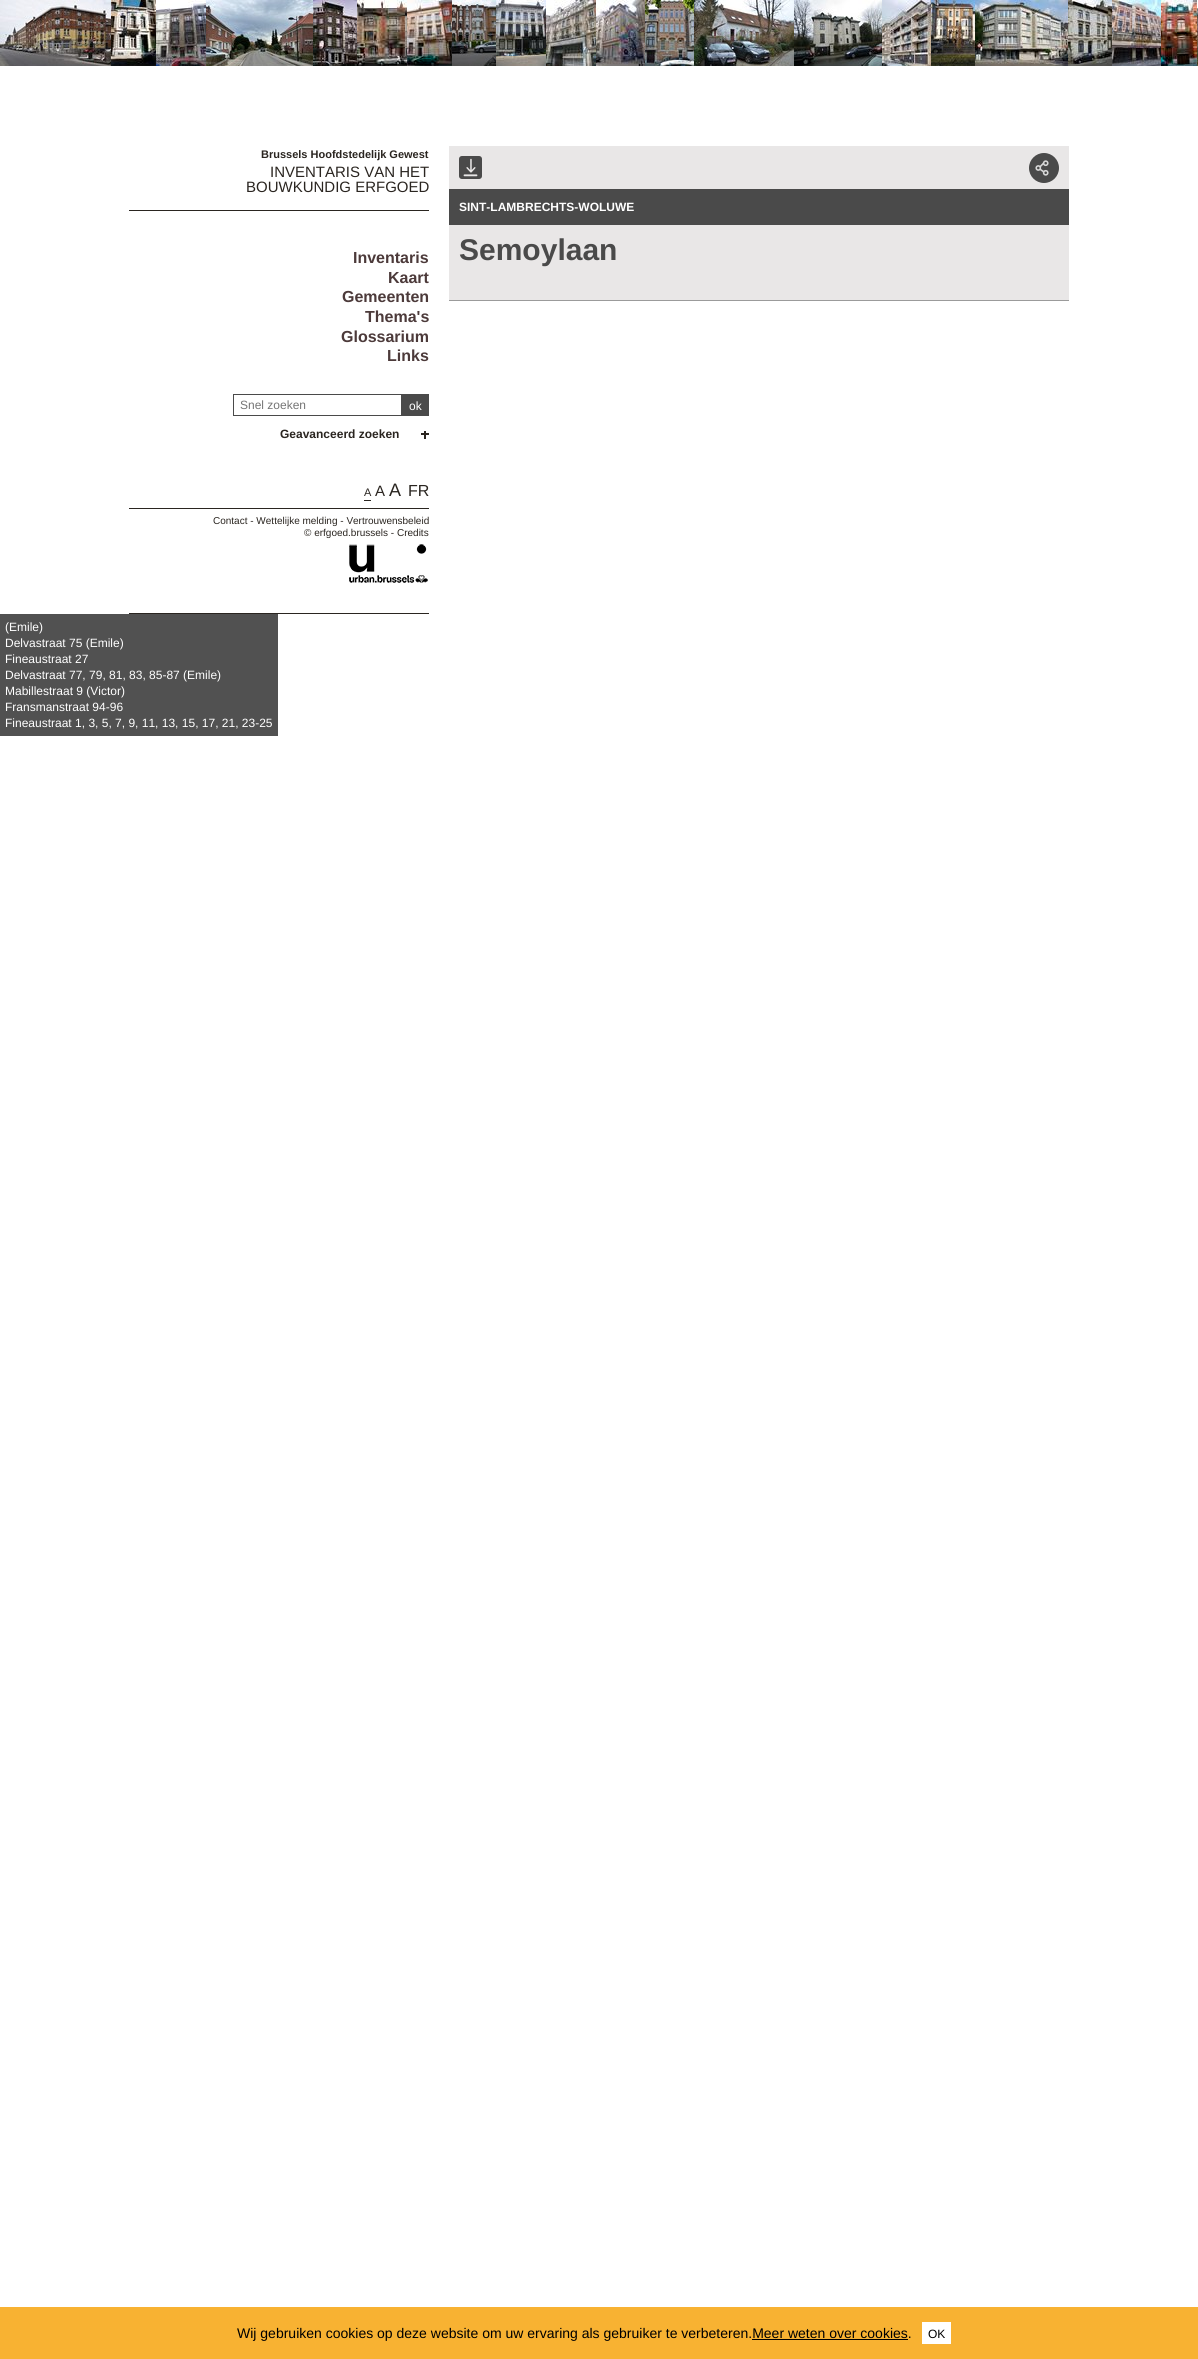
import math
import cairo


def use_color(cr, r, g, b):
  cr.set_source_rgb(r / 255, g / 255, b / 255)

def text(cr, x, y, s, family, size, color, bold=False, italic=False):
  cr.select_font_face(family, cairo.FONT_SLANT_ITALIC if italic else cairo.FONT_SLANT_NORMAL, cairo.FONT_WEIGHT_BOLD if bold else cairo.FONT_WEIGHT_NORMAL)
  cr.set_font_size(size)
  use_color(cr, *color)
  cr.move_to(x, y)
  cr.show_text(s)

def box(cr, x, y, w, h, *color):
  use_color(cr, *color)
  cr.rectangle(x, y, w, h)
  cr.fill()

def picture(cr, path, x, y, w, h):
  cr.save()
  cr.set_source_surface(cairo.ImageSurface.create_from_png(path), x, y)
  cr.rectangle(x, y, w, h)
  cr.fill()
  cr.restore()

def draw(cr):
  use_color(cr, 255, 255, 255)
  cr.paint()
  picture(cr, "img_01.png", 0, 0, 111, 66)
  picture(cr, "img_02.png", 111, 0, 45, 66)
  picture(cr, "img_03.png", 156, 0, 50, 66)
  picture(cr, "img_04.png", 206, 0, 107, 66)
  picture(cr, "img_05.png", 313, 0, 44, 66)
  picture(cr, "img_06.png", 357, 0, 50, 66)
  picture(cr, "img_07.png", 407, 0, 45, 66)
  picture(cr, "img_08.png", 452, 0, 44, 66)
  picture(cr, "img_09.png", 496, 0, 50, 66)
  picture(cr, "img_10.png", 546, 0, 50, 66)
  picture(cr, "img_11.png", 596, 0, 49, 66)
  picture(cr, "img_12.png", 645, 0, 49, 66)
  picture(cr, "img_13.png", 694, 0, 100, 66)
  picture(cr, "img_14.png", 794, 0, 88, 66)
  picture(cr, "img_15.png", 882, 0, 49, 66)
  picture(cr, "img_16.png", 931, 0, 44, 66)
  picture(cr, "img_17.png", 975, 0, 93, 66)
  picture(cr, "img_18.png", 1068, 0, 44, 66)
  picture(cr, "img_19.png", 1112, 0, 49, 66)
  picture(cr, "img_20.png", 1161, 0, 36, 66)
  picture(cr, "img_21.png", 1197, 6, 1, 60)
  box(cr, 129, 210, 300, 1, 42, 37, 32)
  box(cr, 129, 613, 300, 1, 42, 37, 32)
  cr.rectangle(233.5, 394.5, 168, 21)
  use_color(cr, 74, 74, 74)
  cr.set_line_width(1)
  cr.stroke()
  box(cr, 402, 394, 27, 22, 74, 74, 74)
  box(cr, 424, 431, 2, 8, 42, 37, 32)
  box(cr, 421, 433, 8, 2, 42, 37, 32)
  box(cr, 364, 500, 7, 1, 42, 37, 32)
  box(cr, 129, 508, 300, 1, 42, 37, 32)
  picture(cr, "img_22.png", 349, 544, 79, 39)
  box(cr, 449, 146, 620, 154, 233, 231, 231)
  box(cr, 449, 300, 620, 1, 155, 155, 155)
  picture(cr, "img_23.png", 459, 156, 23, 23)
  use_color(cr, 74, 74, 74)
  cr.arc(1044, 168, 15, 0, 2 * math.pi)
  cr.fill()
  picture(cr, "img_24.png", 1035, 160, 14, 16)
  box(cr, 449, 189, 620, 36, 74, 74, 74)
  box(cr, 0, 614, 278, 122, 81, 81, 81)
  box(cr, 0, 2307, 1198, 52, 248, 178, 50)
  box(cr, 922, 2322, 29, 22, 255, 255, 255)
  box(cr, 752, 2339, 156, 1, 0, 0, 0)
  text(cr, 261, 158, "Brussels Hoofdstedelijk Gewest", "Liberation Sans", 11, (42, 37, 32), bold=True)
  text(cr, 270, 177, "INVENTARIS VAN HET", "Liberation Sans", 15, (42, 37, 32))
  text(cr, 246, 192, "BOUWKUNDIG ERFGOED", "Liberation Sans", 15, (42, 37, 32))
  text(cr, 353, 263, "Inventaris", "Liberation Sans", 16, (76, 58, 58), bold=True)
  text(cr, 388, 283, "Kaart", "Liberation Sans", 16, (76, 58, 58), bold=True)
  text(cr, 342, 302, "Gemeenten", "Liberation Sans", 16, (76, 58, 58), bold=True)
  text(cr, 365, 322, "Thema's", "Liberation Sans", 16, (76, 58, 58), bold=True)
  text(cr, 341, 342, "Glossarium", "Liberation Sans", 16, (76, 58, 58), bold=True)
  text(cr, 387, 361, "Links", "Liberation Sans", 16, (76, 58, 58), bold=True)
  text(cr, 240, 409, "Snel zoeken", "Liberation Sans", 12, (117, 117, 117))
  text(cr, 409, 410, "ok", "Liberation Sans", 12, (255, 255, 255))
  text(cr, 280, 438, "Geavanceerd zoeken", "Liberation Sans", 12, (42, 37, 32), bold=True)
  text(cr, 364, 496, "A", "Liberation Sans", 11, (42, 37, 32))
  text(cr, 375, 496, "A", "Liberation Sans", 15, (42, 37, 32))
  text(cr, 389, 496, "A", "Liberation Sans", 18, (42, 37, 32))
  text(cr, 408, 496, "FR", "Liberation Sans", 16, (42, 37, 32))
  text(cr, 213, 524, "Contact - Wettelijke melding - Vertrouwensbeleid", "Liberation Sans", 10, (42, 37, 32))
  text(cr, 304, 536, "© erfgoed.brussels - Credits", "Liberation Sans", 10, (42, 37, 32))
  text(cr, 459, 211, "SINT-LAMBRECHTS-WOLUWE", "Liberation Sans", 12, (255, 255, 255), bold=True)
  text(cr, 459, 260, "Semoylaan", "Liberation Sans", 30, (74, 74, 74), bold=True)
  text(cr, 5, 631, "(Emile)", "Liberation Sans", 12, (255, 255, 255))
  text(cr, 5, 647, "Delvastraat 75 (Emile)", "Liberation Sans", 12, (255, 255, 255))
  text(cr, 5, 663, "Fineaustraat 27", "Liberation Sans", 12, (255, 255, 255))
  text(cr, 5, 679, "Delvastraat 77, 79, 81, 83, 85-87 (Emile)", "Liberation Sans", 12, (255, 255, 255))
  text(cr, 5, 695, "Mabillestraat 9 (Victor)", "Liberation Sans", 12, (255, 255, 255))
  text(cr, 5, 711, "Fransmanstraat 94-96", "Liberation Sans", 12, (255, 255, 255))
  text(cr, 5, 727, "Fineaustraat 1, 3, 5, 7, 9, 11, 13, 15, 17, 21, 23-25", "Liberation Sans", 12, (255, 255, 255))
  text(cr, 237, 2338, "Wij gebruiken cookies op deze website om uw ervaring als gebruiker te verbeteren.Meer weten over cookies.", "Liberation Sans", 14, (0, 0, 0))
  text(cr, 928, 2338, "OK", "Liberation Sans", 12, (0, 0, 0))


surface = cairo.ImageSurface(cairo.FORMAT_RGB24, 1198, 2359)
cr = cairo.Context(surface)
options = cairo.FontOptions()
options.set_hint_metrics(cairo.HINT_METRICS_OFF)
options.set_hint_style(cairo.HINT_STYLE_NONE)
cr.set_font_options(options)
cr.set_miter_limit(4)
draw(cr)
surface.write_to_png("out.png")
